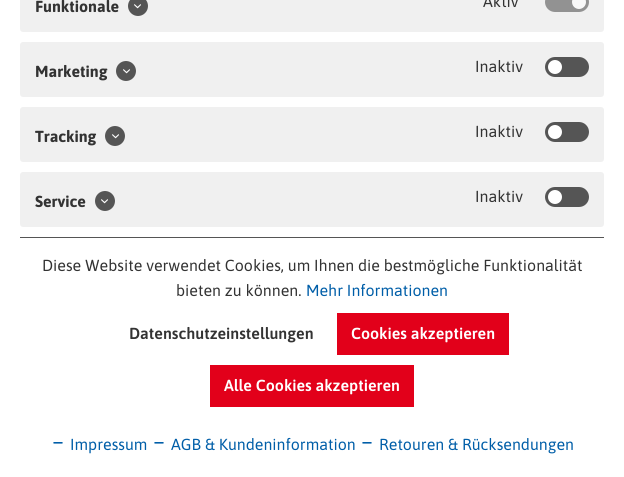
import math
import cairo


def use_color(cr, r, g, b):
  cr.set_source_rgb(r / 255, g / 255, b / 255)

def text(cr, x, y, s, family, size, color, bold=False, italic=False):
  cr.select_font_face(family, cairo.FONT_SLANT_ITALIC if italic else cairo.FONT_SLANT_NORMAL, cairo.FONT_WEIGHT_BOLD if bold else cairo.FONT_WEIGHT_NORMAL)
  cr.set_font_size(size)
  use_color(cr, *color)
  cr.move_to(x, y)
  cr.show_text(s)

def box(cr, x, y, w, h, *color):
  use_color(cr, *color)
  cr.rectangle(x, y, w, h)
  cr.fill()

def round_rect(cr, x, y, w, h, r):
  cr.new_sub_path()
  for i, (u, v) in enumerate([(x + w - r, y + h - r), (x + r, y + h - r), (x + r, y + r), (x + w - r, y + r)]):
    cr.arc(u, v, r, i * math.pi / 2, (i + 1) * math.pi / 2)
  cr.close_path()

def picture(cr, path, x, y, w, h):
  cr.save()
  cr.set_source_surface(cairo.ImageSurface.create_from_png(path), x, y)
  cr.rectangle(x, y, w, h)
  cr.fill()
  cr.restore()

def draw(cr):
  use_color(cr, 255, 255, 255)
  cr.paint()
  box(cr, 20, 237, 584, 1, 85, 85, 85)
  use_color(cr, 240, 240, 240)
  round_rect(cr, 20, -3, 584, 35, 3)
  cr.fill()
  use_color(cr, 85, 85, 85)
  cr.arc(138, 6, 10, 0, 2 * math.pi)
  cr.fill()
  picture(cr, "img_01.png", 134, 4, 7, 5)
  use_color(cr, 146, 146, 146)
  round_rect(cr, 545, -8, 44, 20, 10)
  cr.fill()
  use_color(cr, 248, 248, 248)
  cr.arc(579, 2, 7, 0, 2 * math.pi)
  cr.fill()
  use_color(cr, 240, 240, 240)
  round_rect(cr, 20, 42, 584, 55, 3)
  cr.fill()
  use_color(cr, 85, 85, 85)
  cr.arc(126, 71, 10, 0, 2 * math.pi)
  cr.fill()
  picture(cr, "img_01.png", 123, 69, 7, 5)
  round_rect(cr, 545, 57, 44, 20, 10)
  cr.fill()
  use_color(cr, 255, 255, 255)
  cr.arc(555, 67, 7, 0, 2 * math.pi)
  cr.fill()
  use_color(cr, 240, 240, 240)
  round_rect(cr, 20, 107, 584, 55, 3)
  cr.fill()
  use_color(cr, 85, 85, 85)
  cr.arc(115, 136, 10, 0, 2 * math.pi)
  cr.fill()
  picture(cr, "img_01.png", 112, 134, 7, 5)
  round_rect(cr, 545, 122, 44, 20, 10)
  cr.fill()
  use_color(cr, 255, 255, 255)
  cr.arc(555, 132, 7, 0, 2 * math.pi)
  cr.fill()
  use_color(cr, 240, 240, 240)
  round_rect(cr, 20, 172, 584, 55, 3)
  cr.fill()
  use_color(cr, 85, 85, 85)
  cr.arc(105, 201, 10, 0, 2 * math.pi)
  cr.fill()
  picture(cr, "img_01.png", 101, 199, 7, 5)
  round_rect(cr, 545, 187, 44, 20, 10)
  cr.fill()
  use_color(cr, 255, 255, 255)
  cr.arc(555, 197, 7, 0, 2 * math.pi)
  cr.fill()
  box(cr, 337, 313, 172, 42, 226, 0, 26)
  box(cr, 210, 365, 204, 42, 226, 0, 26)
  picture(cr, "img_02.png", 53, 442, 10, 2)
  picture(cr, "img_02.png", 154, 442, 10, 2)
  picture(cr, "img_02.png", 362, 442, 10, 2)
  text(cr, 35, 12, "Funktionale", "Asap", 16, (51, 51, 51), bold=True)
  text(cr, 483, 7, "Aktiv", "Asap", 16, (51, 51, 51))
  text(cr, 35, 77, "Marketing", "Asap", 16, (51, 51, 51), bold=True)
  text(cr, 475, 72, "Inaktiv", "Asap", 16, (51, 51, 51))
  text(cr, 35, 142, "Tracking", "Asap", 16, (51, 51, 51), bold=True)
  text(cr, 475, 137, "Inaktiv", "Asap", 16, (51, 51, 51))
  text(cr, 35, 207, "Service", "Asap", 16, (51, 51, 51), bold=True)
  text(cr, 475, 202, "Inaktiv", "Asap", 16, (51, 51, 51))
  text(cr, 42, 271, "Diese Website verwendet Cookies, um Ihnen die bestmögliche Funktionalität", "Asap", 16, (51, 51, 51))
  text(cr, 176, 296, "bieten zu können.", "Asap", 16, (51, 51, 51))
  text(cr, 306, 296, "Mehr Informationen", "Asap", 16, (0, 94, 168))
  text(cr, 129, 339, "Datenschutzeinstellungen", "Asap SemiBold", 16, (51, 51, 51))
  text(cr, 351, 339, "Cookies akzeptieren", "Asap SemiBold", 16, (255, 255, 255))
  text(cr, 224, 391, "Alle Cookies akzeptieren", "Asap SemiBold", 16, (255, 255, 255))
  text(cr, 70, 450, "Impressum", "Asap", 16, (0, 94, 168))
  text(cr, 171, 450, "AGB & Kundeninformation", "Asap", 16, (0, 94, 168))
  text(cr, 379, 450, "Retouren & Rücksendungen", "Asap", 16, (0, 94, 168))


surface = cairo.ImageSurface(cairo.FORMAT_RGB24, 624, 477)
cr = cairo.Context(surface)
options = cairo.FontOptions()
options.set_hint_metrics(cairo.HINT_METRICS_OFF)
options.set_hint_style(cairo.HINT_STYLE_NONE)
cr.set_font_options(options)
cr.set_miter_limit(4)
draw(cr)
surface.write_to_png("out.png")
